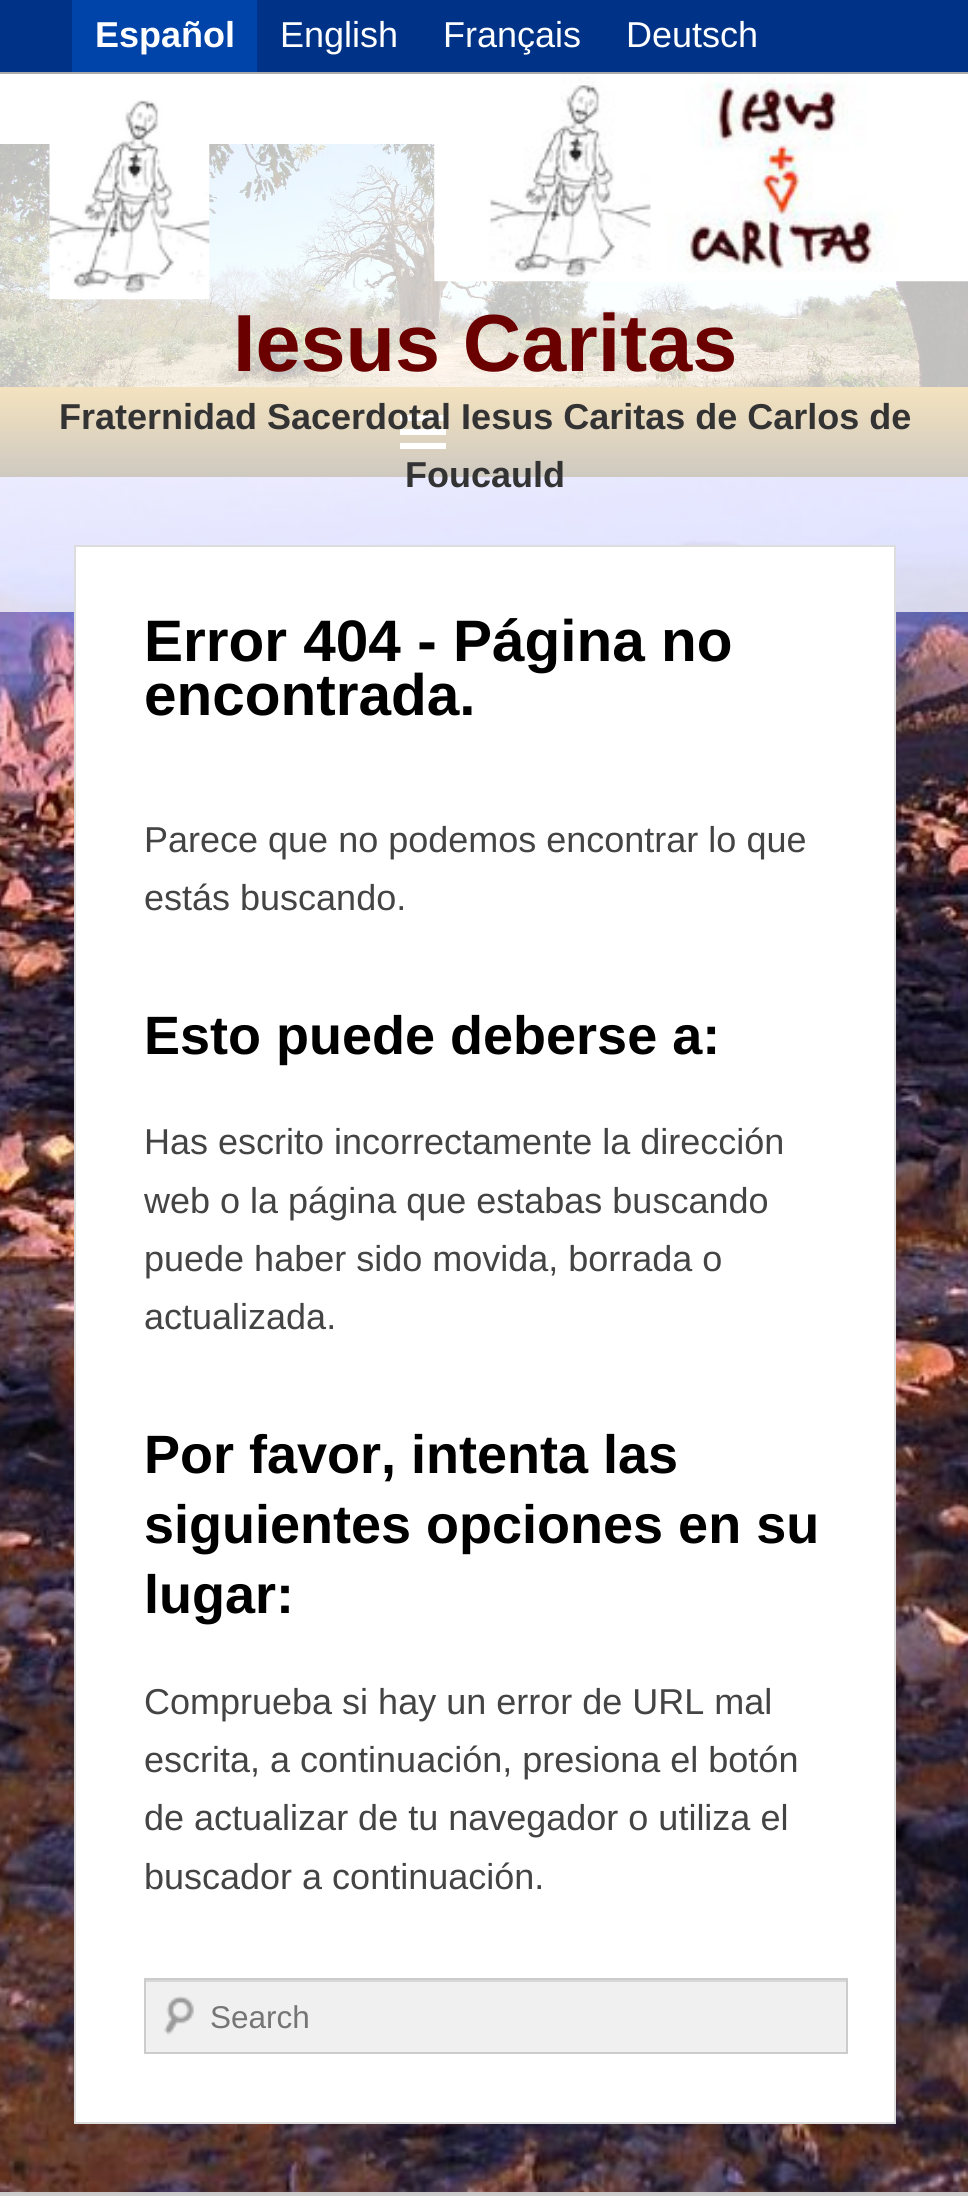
import math
import cairo


def use_color(cr, r, g, b):
  cr.set_source_rgb(r / 255, g / 255, b / 255)

def text(cr, x, y, s, family, size, color, bold=False, italic=False):
  cr.select_font_face(family, cairo.FONT_SLANT_ITALIC if italic else cairo.FONT_SLANT_NORMAL, cairo.FONT_WEIGHT_BOLD if bold else cairo.FONT_WEIGHT_NORMAL)
  cr.set_font_size(size)
  use_color(cr, *color)
  cr.move_to(x, y)
  cr.show_text(s)

def box(cr, x, y, w, h, *color):
  use_color(cr, *color)
  cr.rectangle(x, y, w, h)
  cr.fill()

def picture(cr, path, x, y, w, h):
  cr.save()
  cr.set_source_surface(cairo.ImageSurface.create_from_png(path), x, y)
  cr.rectangle(x, y, w, h)
  cr.fill()
  cr.restore()

def draw(cr):
  use_color(cr, 255, 255, 255)
  cr.paint()
  picture(cr, "img_01.png", 0, 477, 968, 1715)
  box(cr, 0, 0, 968, 72, 0, 51, 136)
  box(cr, 0, 72, 968, 2, 170, 170, 170)
  box(cr, 72, 0, 185, 72, 0, 68, 170)
  picture(cr, "img_02.png", 0, 144, 968, 243)
  gradient = cairo.LinearGradient(485, 387, 485, 477)
  gradient.add_color_stop_rgba(0, 0.831, 0.557, 0, 1)
  gradient.add_color_stop_rgba(1, 0.235, 0.153, 0.012, 1)
  cr.set_source(gradient)
  cr.rectangle(0, 387, 968, 90)
  cr.fill()
  use_color(cr, 255, 255, 255)
  cr.new_path()
  cr.move_to(400, 449)
  cr.line_to(400, 443)
  cr.line_to(446, 443)
  cr.line_to(446, 449)
  cr.close_path()
  cr.move_to(400, 415)
  cr.line_to(446, 415)
  cr.line_to(446, 421)
  cr.line_to(400, 421)
  cr.close_path()
  cr.move_to(400, 435)
  cr.line_to(400, 429)
  cr.line_to(446, 429)
  cr.line_to(446, 435)
  cr.close_path()
  cr.fill()
  cr.set_source_rgba(1, 1, 1, 0.75)
  cr.rectangle(0, 144, 968, 468)
  cr.fill()
  picture(cr, "img_03.png", 434, 74, 534, 208)
  picture(cr, "img_04.png", 49, 100, 161, 200)
  use_color(cr, 255, 255, 255)
  cr.rectangle(75, 546, 820, 1577)
  cr.fill_preserve()
  use_color(cr, 221, 221, 221)
  cr.stroke()
  box(cr, 146, 1982, 700, 70, 240, 240, 240)
  picture(cr, "img_05.png", 164, 1996, 30, 39)
  box(cr, 146, 1980, 700, 2, 216, 216, 216)
  cr.rectangle(145, 1979, 702, 74)
  use_color(cr, 204, 204, 204)
  cr.stroke()
  box(cr, 0, 2192, 968, 4, 204, 204, 204)
  text(cr, 95, 47, "Español", "Liberation Sans", 36, (255, 255, 255), bold=True)
  text(cr, 280, 47, "English", "Liberation Sans", 36, (255, 255, 255))
  text(cr, 443, 47, "Français", "Liberation Sans", 36, (255, 255, 255))
  text(cr, 626, 47, "Deutsch", "Liberation Sans", 36, (255, 255, 255))
  text(cr, 233, 371, "Iesus Caritas", "Liberation Sans", 81, (107, 0, 0), bold=True)
  text(cr, 59, 429, "Fraternidad Sacerdotal Iesus Caritas de Carlos de", "Liberation Sans", 36, (51, 51, 51), bold=True)
  text(cr, 405, 487, "Foucauld", "Liberation Sans", 36, (51, 51, 51), bold=True)
  text(cr, 144, 661, "Error 404 - Página no", "Liberation Sans", 58.5, (0, 0, 0), bold=True)
  text(cr, 144, 715, "encontrada.", "Liberation Sans", 58.5, (0, 0, 0), bold=True)
  text(cr, 144, 852, "Parece que no podemos encontrar lo que", "Liberation Sans", 36, (68, 68, 68))
  text(cr, 144, 910, "estás buscando.", "Liberation Sans", 36, (68, 68, 68))
  text(cr, 144, 1054, "Esto puede deberse a:", "Liberation Sans", 54, (0, 0, 0), bold=True)
  text(cr, 144, 1154, "Has escrito incorrectamente la dirección", "Liberation Sans", 36, (68, 68, 68))
  text(cr, 144, 1213, "web o la página que estabas buscando", "Liberation Sans", 36, (68, 68, 68))
  text(cr, 144, 1271, "puede haber sido movida, borrada o", "Liberation Sans", 36, (68, 68, 68))
  text(cr, 144, 1329, "actualizada.", "Liberation Sans", 36, (68, 68, 68))
  text(cr, 144, 1473, "Por favor, intenta las", "Liberation Sans", 54, (0, 0, 0), bold=True)
  text(cr, 144, 1543, "siguientes opciones en su", "Liberation Sans", 54, (0, 0, 0), bold=True)
  text(cr, 144, 1613, "lugar:", "Liberation Sans", 54, (0, 0, 0), bold=True)
  text(cr, 144, 1714, "Comprueba si hay un error de URL mal", "Liberation Sans", 36, (68, 68, 68))
  text(cr, 144, 1772, "escrita, a continuación, presiona el botón", "Liberation Sans", 36, (68, 68, 68))
  text(cr, 144, 1830, "de actualizar de tu navegador o utiliza el", "Liberation Sans", 36, (68, 68, 68))
  text(cr, 144, 1889, "buscador a continuación.", "Liberation Sans", 36, (68, 68, 68))
  text(cr, 210, 2028, "Search", "Liberation Sans", 31.5, (117, 117, 117))


surface = cairo.ImageSurface(cairo.FORMAT_RGB24, 968, 2196)
cr = cairo.Context(surface)
options = cairo.FontOptions()
options.set_hint_metrics(cairo.HINT_METRICS_OFF)
options.set_hint_style(cairo.HINT_STYLE_NONE)
cr.set_font_options(options)
cr.set_miter_limit(4)
draw(cr)
surface.write_to_png("out.png")
